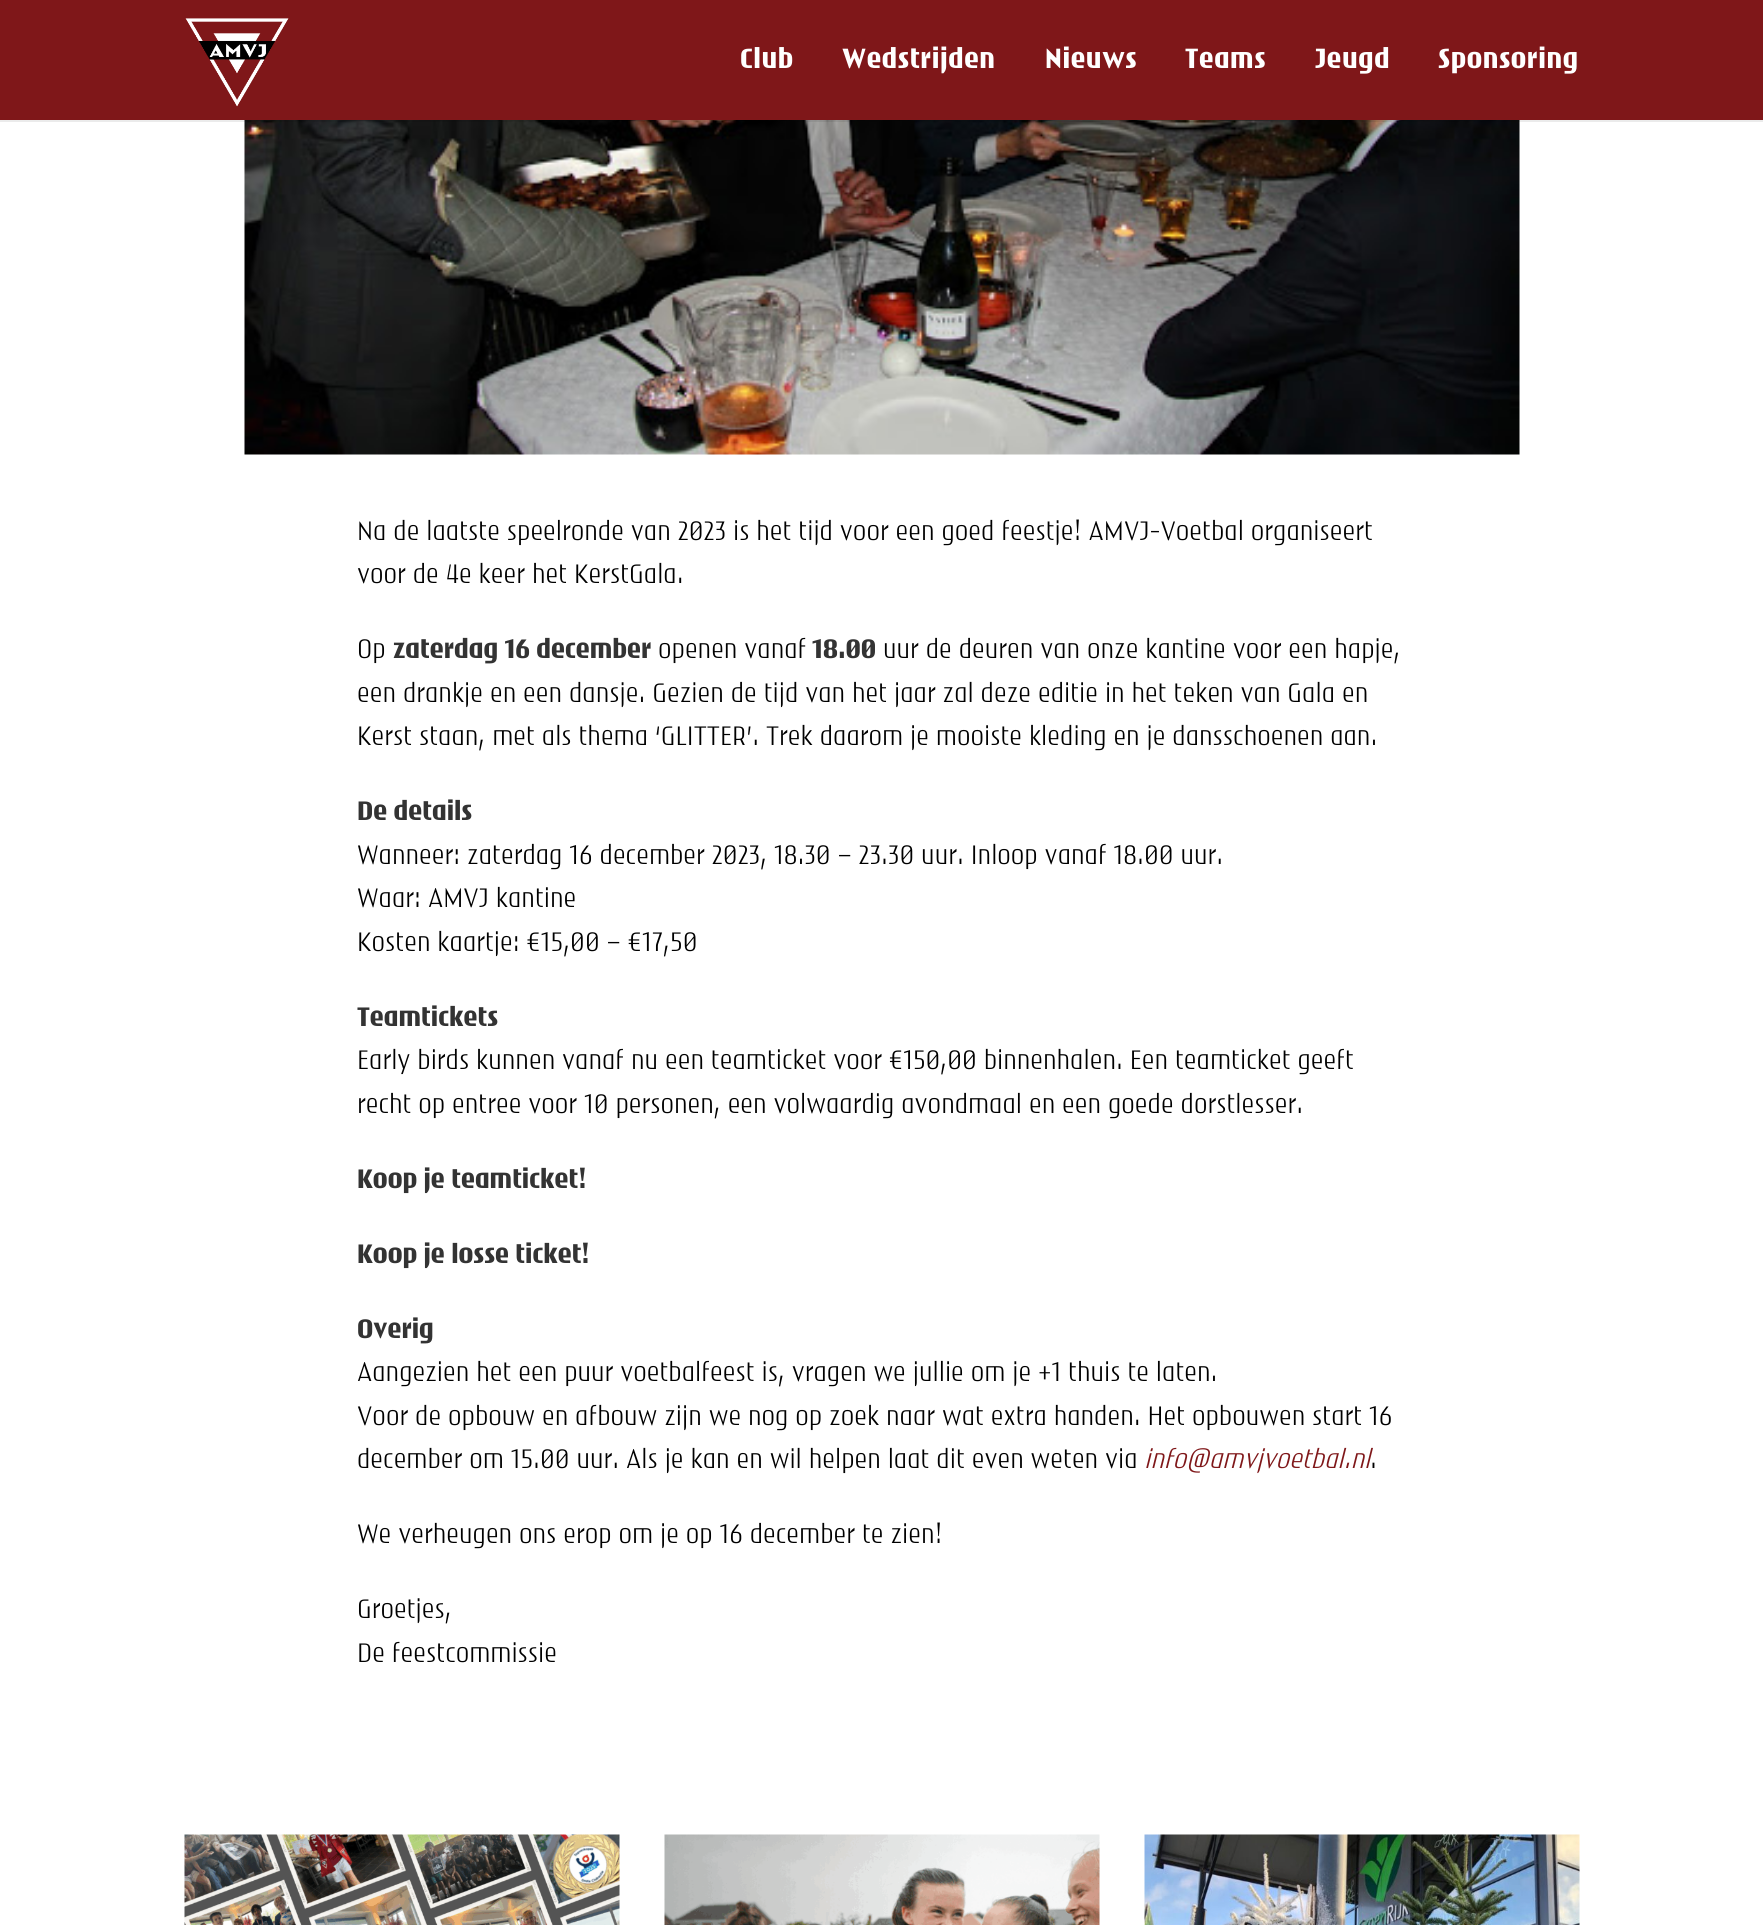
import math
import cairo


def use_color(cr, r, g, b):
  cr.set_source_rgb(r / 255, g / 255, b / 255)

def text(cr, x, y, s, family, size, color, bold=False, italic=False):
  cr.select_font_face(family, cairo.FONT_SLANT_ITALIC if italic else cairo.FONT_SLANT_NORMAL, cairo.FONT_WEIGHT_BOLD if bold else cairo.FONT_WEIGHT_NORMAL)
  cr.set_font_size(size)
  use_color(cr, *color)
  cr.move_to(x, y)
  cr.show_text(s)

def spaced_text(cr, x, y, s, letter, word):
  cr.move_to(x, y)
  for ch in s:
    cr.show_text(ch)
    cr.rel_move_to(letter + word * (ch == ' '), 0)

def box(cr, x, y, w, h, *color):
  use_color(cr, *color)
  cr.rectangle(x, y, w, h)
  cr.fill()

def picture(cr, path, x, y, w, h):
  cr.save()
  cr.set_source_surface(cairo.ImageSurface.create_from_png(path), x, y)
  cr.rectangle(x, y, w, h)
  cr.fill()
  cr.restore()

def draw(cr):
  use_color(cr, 255, 255, 255)
  cr.paint()
  picture(cr, "img_02.png", 244, 120, 1276, 335)
  cr.set_source_rgba(0, 0, 0, 0.08)
  cr.rectangle(0, 120, 1763, 2)
  cr.fill()
  box(cr, 0, 0, 1763, 120, 127, 23, 25)
  picture(cr, "img_01.png", 185, 18, 104, 89)
  picture(cr, "img_03.png", 184, 1834, 436, 91)
  picture(cr, "img_04.png", 664, 1834, 436, 91)
  picture(cr, "img_05.png", 1144, 1834, 436, 91)
  cr.select_font_face("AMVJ", cairo.FONT_SLANT_NORMAL, cairo.FONT_WEIGHT_BOLD)
  cr.set_font_size(27.5)
  use_color(cr, 255, 255, 255)
  spaced_text(cr, 740, 68, "Club", 0.6, 0)
  spaced_text(cr, 842, 68, "Wedstrijden", 0.6, 0)
  spaced_text(cr, 1045, 68, "Nieuws", 0.6, 0)
  spaced_text(cr, 1185, 68, "Teams", 0.6, 0)
  spaced_text(cr, 1315, 68, "Jeugd", 0.6, 0)
  spaced_text(cr, 1438, 68, "Sponsoring", 0.6, 0)
  text(cr, 357, 540, "Na de laatste speelronde van 2023 is het tijd voor een goed feestje! AMVJ-Voetbal organiseert", "AMVJ", 26.4, (0, 0, 0))
  text(cr, 357, 583, "voor de 4e keer het KerstGala.", "AMVJ", 26.4, (0, 0, 0))
  text(cr, 357, 658, "Op", "AMVJ", 26.4, (0, 0, 0))
  text(cr, 393, 658, "zaterdag 16 december", "AMVJ", 26.4, (51, 51, 51), bold=True)
  text(cr, 658, 658, "openen vanaf", "AMVJ", 26.4, (0, 0, 0))
  text(cr, 812, 658, "18.00", "AMVJ", 26.4, (51, 51, 51), bold=True)
  text(cr, 883, 658, "uur de deuren van onze kantine voor een hapje,", "AMVJ", 26.4, (0, 0, 0))
  text(cr, 357, 702, "een drankje en een dansje. Gezien de tijd van het jaar zal deze editie in het teken van Gala en", "AMVJ", 26.4, (0, 0, 0))
  text(cr, 357, 745, "Kerst staan, met als thema ‘GLITTER’. Trek daarom je mooiste kleding en je dansschoenen aan.", "AMVJ", 26.4, (0, 0, 0))
  text(cr, 357, 820, "De details", "AMVJ", 26.4, (51, 51, 51), bold=True)
  text(cr, 357, 864, "Wanneer: zaterdag 16 december 2023, 18.30 – 23.30 uur. Inloop vanaf 18.00 uur.", "AMVJ", 26.4, (0, 0, 0))
  text(cr, 357, 907, "Waar: AMVJ kantine", "AMVJ", 26.4, (0, 0, 0))
  text(cr, 357, 951, "Kosten kaartje: €15,00 – €17,50", "AMVJ", 26.4, (0, 0, 0))
  text(cr, 357, 1026, "Teamtickets", "AMVJ", 26.4, (51, 51, 51), bold=True)
  text(cr, 357, 1069, "Early birds kunnen vanaf nu een teamticket voor €150,00 binnenhalen. Een teamticket geeft", "AMVJ", 26.4, (0, 0, 0))
  text(cr, 357, 1113, "recht op entree voor 10 personen, een volwaardig avondmaal en een goede dorstlesser.", "AMVJ", 26.4, (0, 0, 0))
  text(cr, 357, 1188, "Koop je teamticket!", "AMVJ", 26.4, (51, 51, 51), bold=True)
  text(cr, 357, 1263, "Koop je losse ticket!", "AMVJ", 26.4, (51, 51, 51), bold=True)
  text(cr, 357, 1338, "Overig", "AMVJ", 26.4, (51, 51, 51), bold=True)
  text(cr, 357, 1381, "Aangezien het een puur voetbalfeest is, vragen we jullie om je +1 thuis te laten.", "AMVJ", 26.4, (0, 0, 0))
  text(cr, 357, 1425, "Voor de opbouw en afbouw zijn we nog op zoek naar wat extra handen. Het opbouwen start 16", "AMVJ", 26.4, (0, 0, 0))
  text(cr, 357, 1468, "december om 15.00 uur. Als je kan en wil helpen laat dit even weten via", "AMVJ", 26.4, (0, 0, 0))
  text(cr, 1144, 1468, "info@amvjvoetbal.nl", "AMVJ", 26.4, (127, 23, 25), italic=True)
  text(cr, 1370, 1468, ".", "AMVJ", 26.4, (0, 0, 0))
  text(cr, 357, 1543, "We verheugen ons erop om je op 16 december te zien!", "AMVJ", 26.4, (0, 0, 0))
  text(cr, 357, 1618, "Groetjes,", "AMVJ", 26.4, (0, 0, 0))
  text(cr, 357, 1662, "De feestcommissie", "AMVJ", 26.4, (0, 0, 0))


surface = cairo.ImageSurface(cairo.FORMAT_RGB24, 1763, 1925)
cr = cairo.Context(surface)
options = cairo.FontOptions()
options.set_hint_metrics(cairo.HINT_METRICS_OFF)
options.set_hint_style(cairo.HINT_STYLE_NONE)
cr.set_font_options(options)
cr.set_miter_limit(4)
draw(cr)
surface.write_to_png("out.png")
